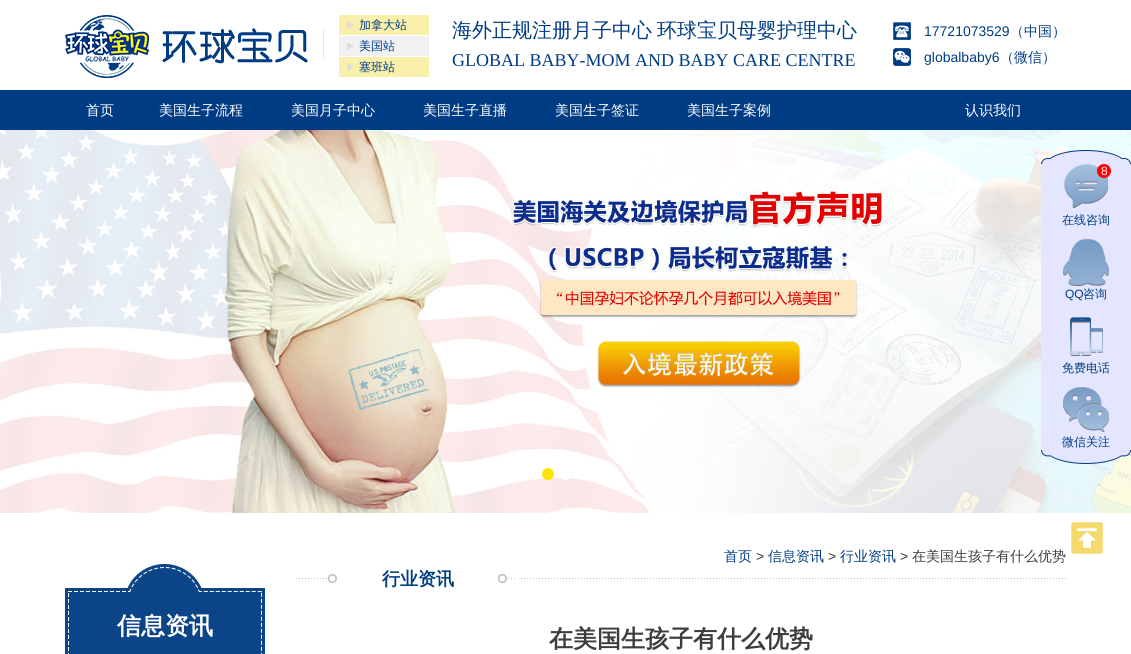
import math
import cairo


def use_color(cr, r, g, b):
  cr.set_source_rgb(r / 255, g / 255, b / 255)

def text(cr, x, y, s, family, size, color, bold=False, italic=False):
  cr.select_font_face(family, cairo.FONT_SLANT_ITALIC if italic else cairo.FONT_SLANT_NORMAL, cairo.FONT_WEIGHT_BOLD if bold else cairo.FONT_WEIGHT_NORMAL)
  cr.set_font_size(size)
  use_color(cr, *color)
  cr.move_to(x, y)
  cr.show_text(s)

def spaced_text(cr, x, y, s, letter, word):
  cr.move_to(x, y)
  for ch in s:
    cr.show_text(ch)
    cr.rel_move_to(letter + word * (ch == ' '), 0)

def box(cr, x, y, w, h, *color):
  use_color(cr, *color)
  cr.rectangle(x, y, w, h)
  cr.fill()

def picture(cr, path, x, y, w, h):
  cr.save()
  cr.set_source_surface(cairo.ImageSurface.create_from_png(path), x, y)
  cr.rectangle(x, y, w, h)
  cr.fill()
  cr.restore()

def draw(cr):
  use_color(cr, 255, 255, 255)
  cr.paint()
  picture(cr, "img_01.png", 65, 15, 243, 63)
  box(cr, 323, 30, 1, 30, 227, 233, 241)
  box(cr, 339, 15, 90, 20, 248, 240, 171)
  picture(cr, "img_02.png", 347, 21, 7, 8)
  box(cr, 339, 36, 90, 20, 241, 241, 241)
  picture(cr, "img_03.png", 347, 42, 7, 8)
  box(cr, 339, 57, 90, 20, 248, 240, 171)
  picture(cr, "img_02.png", 347, 63, 7, 8)
  picture(cr, "img_04.png", 893, 22, 18, 18)
  picture(cr, "img_05.png", 893, 48, 18, 18)
  box(cr, 0, 90, 1131, 40, 0, 60, 131)
  picture(cr, "img_06.png", 0, 130, 1131, 383)
  use_color(cr, 255, 228, 1)
  cr.arc(548, 474, 6, 0, 2 * math.pi)
  cr.fill()
  use_color(cr, 255, 255, 255)
  cr.arc(566, 474, 6, 0, 2 * math.pi)
  cr.fill()
  cr.arc(584, 474, 6, 0, 2 * math.pi)
  cr.fill()
  picture(cr, "img_07.png", 1041, 150, 90, 14)
  box(cr, 1041, 164, 90, 286, 227, 230, 254)
  picture(cr, "img_08.png", 1064, 164, 44, 44)
  use_color(cr, 255, 0, 0)
  cr.arc(1104, 171, 7, 0, 2 * math.pi)
  cr.fill()
  picture(cr, "img_09.png", 1063, 239, 46, 47)
  picture(cr, "img_10.png", 1070, 317, 33, 39)
  picture(cr, "img_11.png", 1063, 387, 46, 45)
  picture(cr, "img_12.png", 1041, 450, 90, 14)
  picture(cr, "img_13.png", 1071, 522, 32, 32)
  picture(cr, "img_14.png", 65, 564, 200, 90)
  picture(cr, "img_15.png", 296, 574, 770, 9)
  text(cr, 359, 29, "加拿大站", "WenQuanYi Zen Hei Medium", 12, (0, 60, 131))
  text(cr, 359, 50, "美国站", "WenQuanYi Zen Hei Medium", 12, (0, 60, 131))
  text(cr, 359, 71, "塞班站", "WenQuanYi Zen Hei Medium", 12, (0, 60, 131))
  cr.set_font_size(20)
  spaced_text(cr, 452, 37, "海外正规注册月子中心 环球宝贝母婴护理中心", 0, -1)
  text(cr, 452, 66, "GLOBAL BABY-MOM AND BABY CARE CENTRE", "Liberation Serif", 18, (0, 60, 131))
  text(cr, 924, 36, "17721073529", "Liberation Sans", 14, (0, 60, 131))
  text(cr, 1010, 36, "（中国）", "WenQuanYi Zen Hei Medium", 14, (0, 60, 131))
  text(cr, 924, 62, "globalbaby6", "Liberation Sans", 14, (0, 60, 131))
  text(cr, 1000, 62, "（微信）", "WenQuanYi Zen Hei Medium", 14, (0, 60, 131))
  text(cr, 86, 115, "首页", "WenQuanYi Zen Hei Medium", 14, (255, 255, 255))
  text(cr, 159, 115, "美国生子流程", "WenQuanYi Zen Hei Medium", 14, (255, 255, 255))
  text(cr, 291, 115, "美国月子中心", "WenQuanYi Zen Hei Medium", 14, (255, 255, 255))
  text(cr, 423, 115, "美国生子直播", "WenQuanYi Zen Hei Medium", 14, (255, 255, 255))
  text(cr, 555, 115, "美国生子签证", "WenQuanYi Zen Hei Medium", 14, (255, 255, 255))
  text(cr, 687, 115, "美国生子案例", "WenQuanYi Zen Hei Medium", 14, (255, 255, 255))
  text(cr, 965, 115, "认识我们", "WenQuanYi Zen Hei Medium", 14, (255, 255, 255))
  text(cr, 1101, 175, "8", "Liberation Sans", 12, (255, 255, 255))
  text(cr, 1062, 224, "在线咨询", "WenQuanYi Zen Hei Medium", 12, (0, 60, 131))
  text(cr, 1065, 298, "QQ", "Liberation Sans", 12, (0, 60, 131))
  text(cr, 1083, 298, "咨询", "WenQuanYi Zen Hei Medium", 12, (0, 60, 131))
  text(cr, 1062, 372, "免费电话", "WenQuanYi Zen Hei Medium", 12, (0, 60, 131))
  text(cr, 1062, 446, "微信关注", "WenQuanYi Zen Hei Medium", 12, (0, 60, 131))
  text(cr, 117, 634, "信息资讯", "WenQuanYi Zen Hei", 24, (255, 255, 255), bold=True)
  text(cr, 724, 561, "首页", "WenQuanYi Zen Hei Medium", 14, (0, 60, 131))
  text(cr, 756, 561, ">", "Liberation Sans", 14, (61, 61, 61))
  text(cr, 768, 561, "信息资讯", "WenQuanYi Zen Hei Medium", 14, (0, 60, 131))
  text(cr, 828, 561, ">", "Liberation Sans", 14, (61, 61, 61))
  text(cr, 840, 561, "行业资讯", "WenQuanYi Zen Hei Medium", 14, (0, 60, 131))
  text(cr, 900, 561, ">", "Liberation Sans", 14, (61, 61, 61))
  text(cr, 912, 561, "在美国生孩子有什么优势", "WenQuanYi Zen Hei Medium", 14, (61, 61, 61))
  text(cr, 382, 585, "行业资讯", "WenQuanYi Zen Hei", 18, (0, 60, 131), bold=True)
  text(cr, 549, 647, "在美国生孩子有什么优势", "WenQuanYi Zen Hei", 24, (61, 61, 61), bold=True)


surface = cairo.ImageSurface(cairo.FORMAT_RGB24, 1131, 654)
cr = cairo.Context(surface)
options = cairo.FontOptions()
options.set_hint_metrics(cairo.HINT_METRICS_OFF)
options.set_hint_style(cairo.HINT_STYLE_NONE)
cr.set_font_options(options)
cr.set_miter_limit(4)
draw(cr)
surface.write_to_png("out.png")
